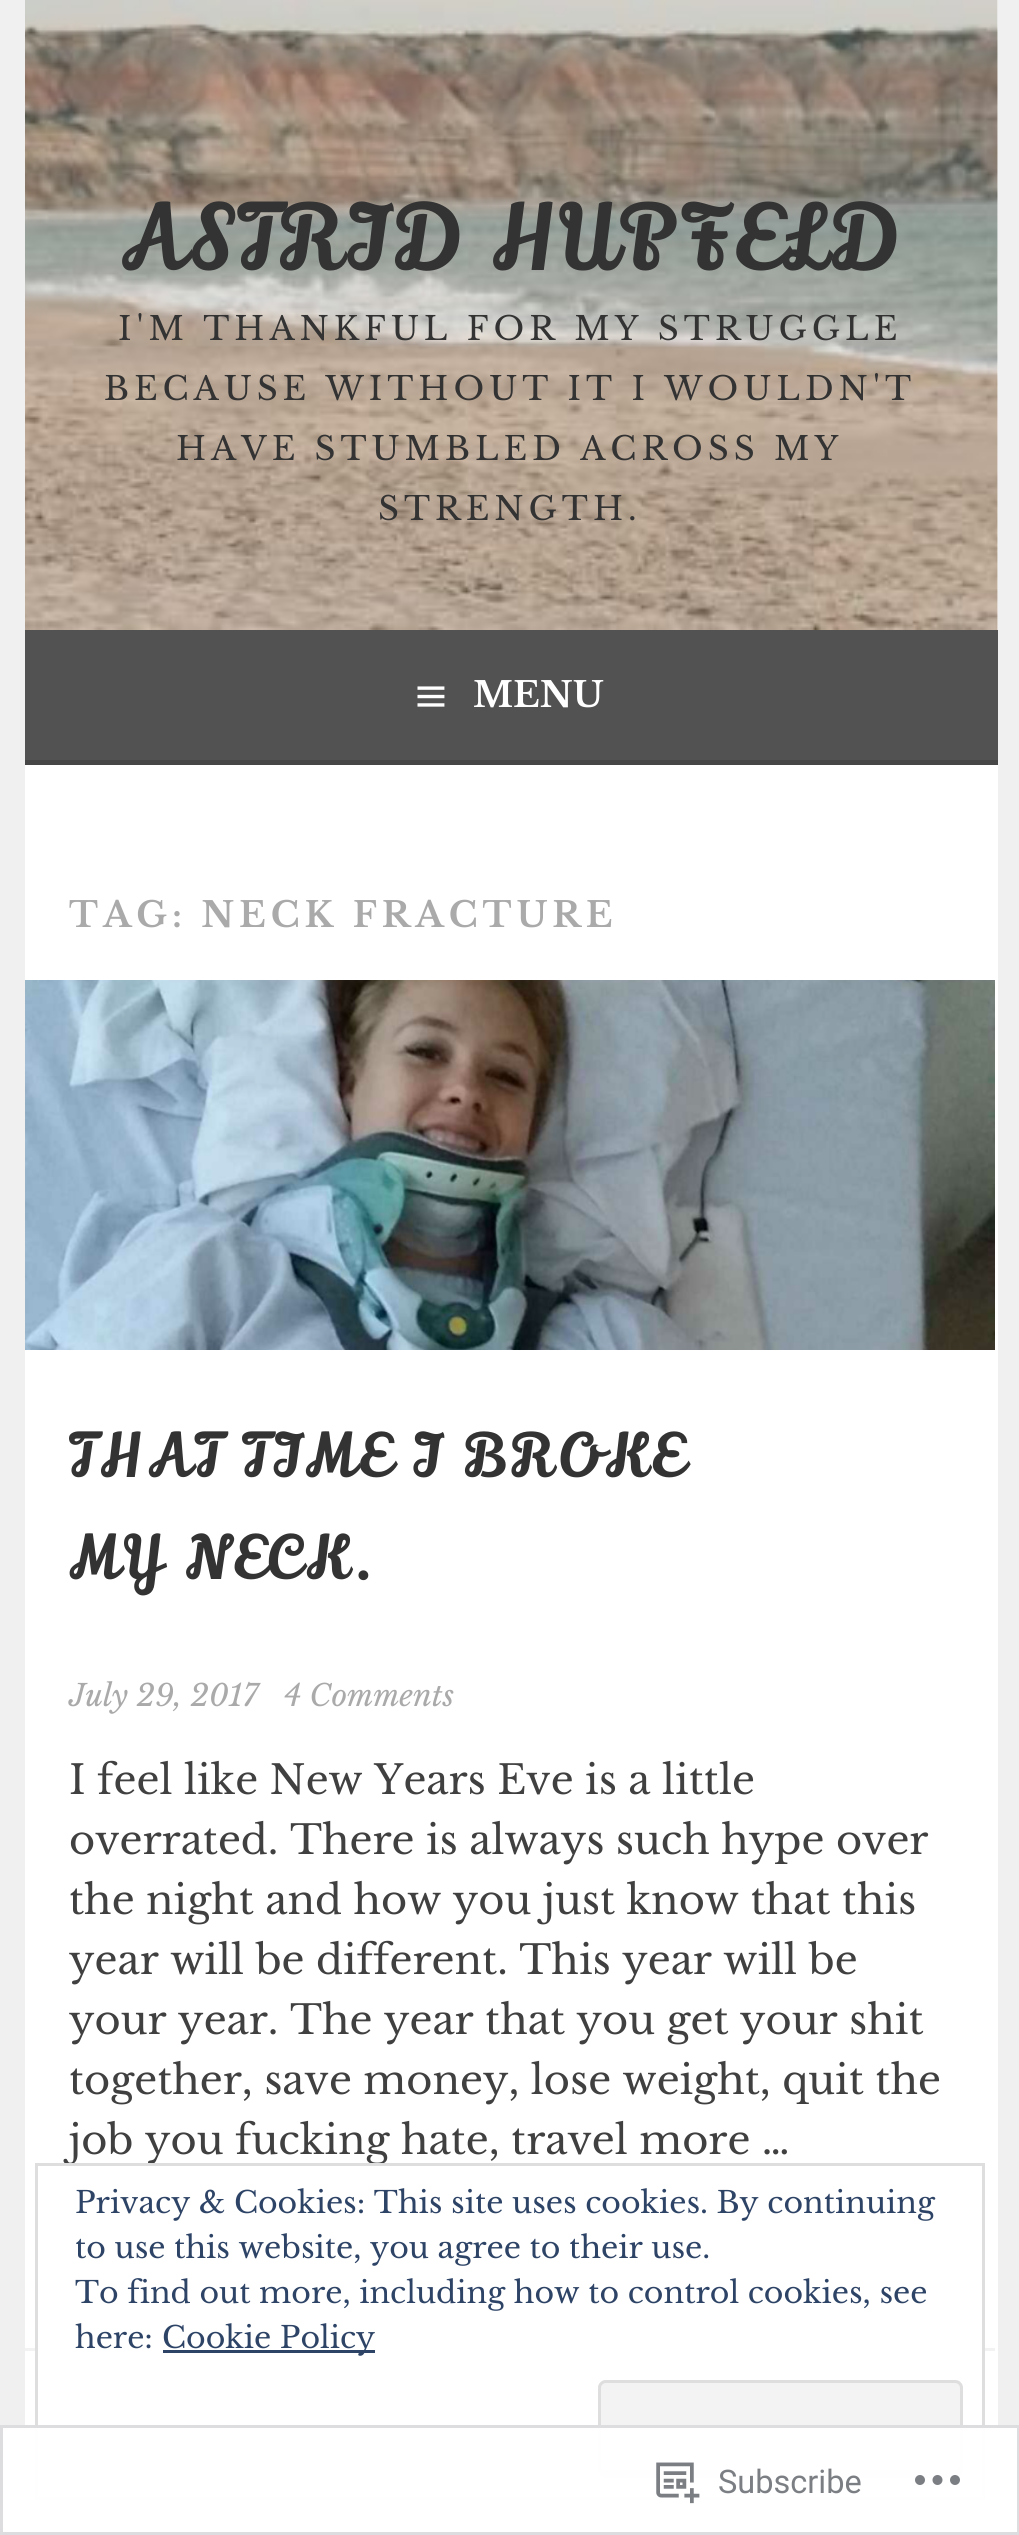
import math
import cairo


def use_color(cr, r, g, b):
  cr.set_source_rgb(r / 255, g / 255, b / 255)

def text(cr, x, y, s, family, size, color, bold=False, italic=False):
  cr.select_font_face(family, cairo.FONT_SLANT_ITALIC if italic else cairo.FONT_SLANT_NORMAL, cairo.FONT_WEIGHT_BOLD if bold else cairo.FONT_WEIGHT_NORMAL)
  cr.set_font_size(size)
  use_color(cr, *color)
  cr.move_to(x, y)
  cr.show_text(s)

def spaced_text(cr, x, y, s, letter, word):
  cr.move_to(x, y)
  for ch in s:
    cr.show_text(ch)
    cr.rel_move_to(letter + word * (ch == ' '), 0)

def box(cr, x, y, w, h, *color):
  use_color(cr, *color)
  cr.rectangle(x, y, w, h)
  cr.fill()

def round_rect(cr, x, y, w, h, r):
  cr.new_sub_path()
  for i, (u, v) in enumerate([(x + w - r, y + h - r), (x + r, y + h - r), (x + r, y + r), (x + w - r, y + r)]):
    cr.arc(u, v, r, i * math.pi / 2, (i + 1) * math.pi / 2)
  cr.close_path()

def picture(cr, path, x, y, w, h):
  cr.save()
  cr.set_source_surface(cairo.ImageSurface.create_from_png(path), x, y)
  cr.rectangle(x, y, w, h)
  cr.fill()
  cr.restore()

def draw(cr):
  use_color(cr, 240, 240, 240)
  cr.paint()
  box(cr, 997, 0, 1, 630, 255, 255, 255)
  picture(cr, "img_01.png", 25, 0, 973, 630)
  box(cr, 25, 630, 973, 130, 82, 82, 82)
  box(cr, 25, 760, 973, 5, 70, 70, 70)
  picture(cr, "img_02.png", 417, 686, 28, 21)
  box(cr, 25, 765, 973, 1770, 255, 255, 255)
  picture(cr, "img_03.png", 25, 980, 970, 370)
  box(cr, 25, 2348, 970, 3, 242, 242, 242)
  box(cr, 38, 2348, 944, 3, 255, 255, 255)
  cr.select_font_face("Lily Script One")
  cr.set_font_size(90)
  use_color(cr, 51, 51, 51)
  spaced_text(cr, 119, 270, "ASTRID HUPFELD", 5, 0)
  cr.select_font_face("Libre Baskerville")
  cr.set_font_size(32.5)
  spaced_text(cr, 118, 340, "I'M THANKFUL FOR MY STRUGGLE", 5, 0)
  spaced_text(cr, 104, 400, "BECAUSE WITHOUT IT I WOULDN'T", 5, 0)
  spaced_text(cr, 176, 460, "HAVE STUMBLED ACROSS MY", 5, 0)
  spaced_text(cr, 378, 520, "STRENGTH.", 5, 0)
  text(cr, 473, 707, "MENU", "Libre Baskerville", 35, (255, 255, 255), bold=True)
  use_color(cr, 170, 170, 170)
  spaced_text(cr, 69, 927, "TAG: NECK FRACTURE", 5, 0)
  cr.select_font_face("Lily Script One")
  cr.set_font_size(60)
  use_color(cr, 51, 51, 51)
  spaced_text(cr, 69, 1477, "THAT TIME I BROKE", 5, 0)
  spaced_text(cr, 69, 1579, "MY NECK.", 5, 0)
  text(cr, 69, 1706, "July 29, 2017", "Libre Baskerville", 30, (170, 170, 170), italic=True)
  text(cr, 284, 1706, "4 Comments", "Libre Baskerville", 30, (170, 170, 170), italic=True)
  text(cr, 69, 1794, "I feel like New Years Eve is a little", "Libre Baskerville", 40, (64, 64, 64))
  text(cr, 69, 1854, "overrated. There is always such hype over", "Libre Baskerville", 40, (64, 64, 64))
  text(cr, 69, 1914, "the night and how you just know that this", "Libre Baskerville", 40, (64, 64, 64))
  text(cr, 69, 1974, "year will be different. This year will be", "Libre Baskerville", 40, (64, 64, 64))
  text(cr, 69, 2034, "your year. The year that you get your shit", "Libre Baskerville", 40, (64, 64, 64))
  text(cr, 69, 2094, "together, save money, lose weight, quit the", "Libre Baskerville", 40, (64, 64, 64))
  text(cr, 69, 2154, "job you fucking hate, travel more …", "Libre Baskerville", 40, (64, 64, 64))
  cr.rectangle(36.5, 2164.5, 947, 334)
  use_color(cr, 222, 222, 222)
  cr.set_line_width(3)
  cr.stroke()
  text(cr, 75, 2213, "Privacy & Cookies: This site uses cookies. By continuing", "Libre Baskerville", 30, (46, 68, 103))
  text(cr, 75, 2258, "to use this website, you agree to their use.", "Libre Baskerville", 30, (46, 68, 103))
  text(cr, 75, 2303, "To find out more, including how to control cookies, see", "Libre Baskerville", 30, (46, 68, 103))
  text(cr, 75, 2348, "here:", "Libre Baskerville", 30, (46, 68, 103))
  box(cr, 163, 2350, 212, 3, 46, 68, 103)
  text(cr, 162, 2348, "Cookie Policy", "Libre Baskerville", 30, (46, 68, 103))
  use_color(cr, 243, 243, 243)
  round_rect(cr, 598, 2380, 365, 98, 8)
  cr.fill()
  use_color(cr, 219, 219, 219)
  cr.new_path()
  cr.move_to(600, 2465)
  cr.line_to(600, 2470)
  cr.curve_to(600, 2473, 602, 2475, 605, 2475)
  cr.line_to(955, 2475)
  cr.curve_to(958, 2475, 960, 2473, 960, 2470)
  cr.line_to(960, 2465)
  cr.curve_to(960, 2468, 958, 2470, 955, 2470)
  cr.line_to(605, 2470)
  cr.curve_to(602, 2470, 600, 2468, 600, 2465)
  cr.close_path()
  cr.fill()
  round_rect(cr, 599.5, 2381.5, 362, 95, 6.5)
  use_color(cr, 222, 222, 222)
  cr.stroke()
  cr.set_source_rgba(1, 1, 1, 0.98)
  cr.rectangle(0, 2425, 1019, 110)
  cr.fill()
  cr.rectangle(1.5, 2426.5, 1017, 107)
  cr.set_source_rgba(0.863, 0.863, 0.871, 0.98)
  cr.stroke()
  picture(cr, "img_04.png", 656, 2462, 44, 42)
  text(cr, 718, 2493, "Subscribe", "Roboto", 32.5, (123, 127, 132))
  picture(cr, "img_05.png", 915, 2475, 45, 10)


surface = cairo.ImageSurface(cairo.FORMAT_RGB24, 1019, 2535)
cr = cairo.Context(surface)
options = cairo.FontOptions()
options.set_hint_metrics(cairo.HINT_METRICS_OFF)
options.set_hint_style(cairo.HINT_STYLE_NONE)
cr.set_font_options(options)
cr.set_miter_limit(4)
draw(cr)
surface.write_to_png("out.png")
